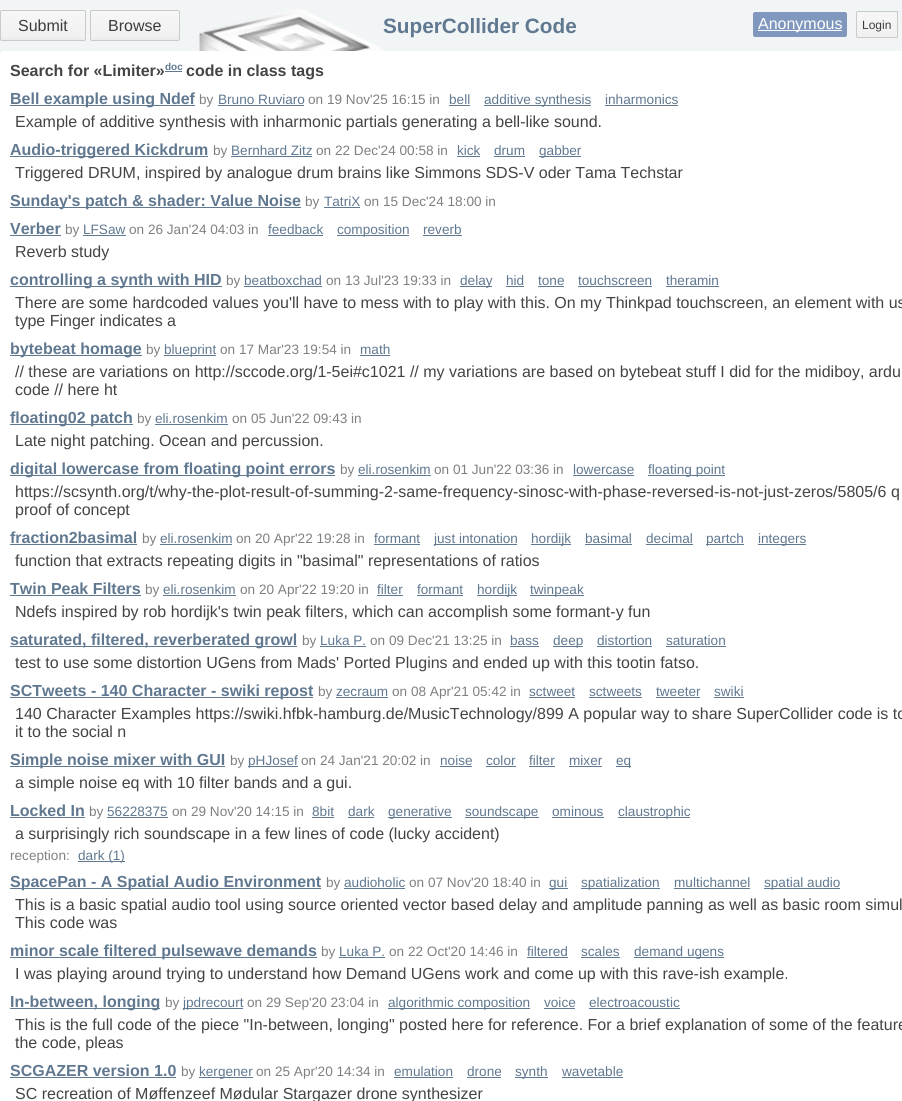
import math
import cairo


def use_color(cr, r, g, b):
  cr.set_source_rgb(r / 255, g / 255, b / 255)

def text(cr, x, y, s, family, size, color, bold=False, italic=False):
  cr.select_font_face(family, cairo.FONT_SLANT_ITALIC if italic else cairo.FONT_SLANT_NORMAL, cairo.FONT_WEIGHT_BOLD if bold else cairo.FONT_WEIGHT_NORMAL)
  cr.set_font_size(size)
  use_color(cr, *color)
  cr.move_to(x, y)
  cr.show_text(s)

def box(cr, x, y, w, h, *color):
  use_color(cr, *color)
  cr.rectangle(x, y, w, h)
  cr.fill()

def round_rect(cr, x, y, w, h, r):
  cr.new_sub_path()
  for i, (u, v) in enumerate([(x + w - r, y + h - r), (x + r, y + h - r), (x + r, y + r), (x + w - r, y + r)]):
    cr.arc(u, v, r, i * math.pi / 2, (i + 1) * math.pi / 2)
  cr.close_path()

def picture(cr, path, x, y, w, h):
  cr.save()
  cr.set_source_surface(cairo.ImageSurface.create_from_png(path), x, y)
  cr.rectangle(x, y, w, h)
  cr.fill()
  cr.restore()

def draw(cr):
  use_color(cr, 242, 245, 246)
  cr.paint()
  picture(cr, "img_01.png", 198, 9, 185, 42)
  use_color(cr, 236, 236, 236)
  round_rect(cr, 0, 10, 86, 31, 2)
  cr.fill()
  picture(cr, "img_02.png", 1, 11, 85, 27)
  round_rect(cr, 0.5, 10.5, 85, 30, 1.5)
  use_color(cr, 202, 202, 202)
  cr.set_line_width(1)
  cr.stroke()
  use_color(cr, 236, 236, 236)
  round_rect(cr, 90, 10, 90, 31, 2)
  cr.fill()
  picture(cr, "img_03.png", 91, 11, 89, 27)
  round_rect(cr, 90.5, 10.5, 89, 30, 1.5)
  use_color(cr, 202, 202, 202)
  cr.stroke()
  use_color(cr, 128, 152, 190)
  round_rect(cr, 753, 12, 94, 25, 2)
  cr.fill()
  box(cr, 758, 30, 84, 1, 255, 255, 255)
  picture(cr, "img_04.png", 857, 12, 40, 26)
  cr.new_path()
  cr.move_to(858, 11.5)
  cr.line_to(897.5, 11.5)
  cr.line_to(897.5, 37.5)
  cr.line_to(858, 37.5)
  cr.curve_to(857, 37.5, 856.5, 37, 856.5, 36)
  cr.line_to(856.5, 13)
  cr.curve_to(856.5, 12, 857, 11.5, 858, 11.5)
  cr.close_path()
  use_color(cr, 202, 202, 202)
  cr.stroke()
  use_color(cr, 255, 255, 255)
  round_rect(cr, 0, 51, 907, 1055, 5)
  cr.fill()
  box(cr, 165, 71, 17, 1, 96, 120, 144)
  box(cr, 10, 105, 185, 1, 96, 120, 144)
  box(cr, 218, 105, 86, 1, 96, 120, 144)
  box(cr, 449, 105, 21, 1, 96, 120, 144)
  box(cr, 484, 105, 107, 1, 96, 120, 144)
  box(cr, 605, 105, 73, 1, 96, 120, 144)
  box(cr, 10, 156, 198, 1, 96, 120, 144)
  box(cr, 231, 156, 81, 1, 96, 120, 144)
  box(cr, 457, 156, 23, 1, 96, 120, 144)
  box(cr, 494, 156, 31, 1, 96, 120, 144)
  box(cr, 539, 156, 42, 1, 96, 120, 144)
  box(cr, 10, 207, 291, 1, 96, 120, 144)
  box(cr, 324, 207, 36, 1, 96, 120, 144)
  box(cr, 10, 235, 51, 1, 96, 120, 144)
  box(cr, 83, 235, 43, 1, 96, 120, 144)
  box(cr, 268, 235, 55, 1, 96, 120, 144)
  box(cr, 337, 235, 72, 1, 96, 120, 144)
  box(cr, 423, 235, 39, 1, 96, 120, 144)
  box(cr, 10, 286, 212, 1, 96, 120, 144)
  box(cr, 244, 286, 78, 1, 96, 120, 144)
  box(cr, 460, 286, 32, 1, 96, 120, 144)
  box(cr, 506, 286, 18, 1, 96, 120, 144)
  box(cr, 538, 286, 26, 1, 96, 120, 144)
  box(cr, 578, 286, 74, 1, 96, 120, 144)
  box(cr, 666, 286, 53, 1, 96, 120, 144)
  box(cr, 10, 355, 132, 1, 96, 120, 144)
  box(cr, 164, 355, 52, 1, 96, 120, 144)
  box(cr, 360, 355, 30, 1, 96, 120, 144)
  box(cr, 10, 424, 123, 1, 96, 120, 144)
  box(cr, 155, 424, 73, 1, 96, 120, 144)
  box(cr, 10, 475, 325, 1, 96, 120, 144)
  box(cr, 358, 475, 73, 1, 96, 120, 144)
  box(cr, 573, 475, 61, 1, 96, 120, 144)
  box(cr, 648, 475, 77, 1, 96, 120, 144)
  box(cr, 10, 544, 127, 1, 96, 120, 144)
  box(cr, 160, 544, 72, 1, 96, 120, 144)
  box(cr, 374, 544, 46, 1, 96, 120, 144)
  box(cr, 434, 544, 83, 1, 96, 120, 144)
  box(cr, 531, 544, 40, 1, 96, 120, 144)
  box(cr, 585, 544, 47, 1, 96, 120, 144)
  box(cr, 646, 544, 47, 1, 96, 120, 144)
  box(cr, 706, 544, 38, 1, 96, 120, 144)
  box(cr, 758, 544, 48, 1, 96, 120, 144)
  box(cr, 10, 595, 131, 1, 96, 120, 144)
  box(cr, 163, 595, 73, 1, 96, 120, 144)
  box(cr, 377, 595, 26, 1, 96, 120, 144)
  box(cr, 417, 595, 46, 1, 96, 120, 144)
  box(cr, 477, 595, 40, 1, 96, 120, 144)
  box(cr, 530, 595, 54, 1, 96, 120, 144)
  box(cr, 10, 646, 287, 1, 96, 120, 144)
  box(cr, 320, 646, 46, 1, 96, 120, 144)
  box(cr, 510, 646, 29, 1, 96, 120, 144)
  box(cr, 553, 646, 30, 1, 96, 120, 144)
  box(cr, 597, 646, 55, 1, 96, 120, 144)
  box(cr, 666, 646, 60, 1, 96, 120, 144)
  box(cr, 10, 697, 303, 1, 96, 120, 144)
  box(cr, 336, 697, 52, 1, 96, 120, 144)
  box(cr, 529, 697, 46, 1, 96, 120, 144)
  box(cr, 589, 697, 53, 1, 96, 120, 144)
  box(cr, 656, 697, 44, 1, 96, 120, 144)
  box(cr, 714, 697, 30, 1, 96, 120, 144)
  box(cr, 10, 766, 215, 1, 96, 120, 144)
  box(cr, 248, 766, 50, 1, 96, 120, 144)
  box(cr, 440, 766, 32, 1, 96, 120, 144)
  box(cr, 486, 766, 30, 1, 96, 120, 144)
  box(cr, 529, 766, 26, 1, 96, 120, 144)
  box(cr, 569, 766, 33, 1, 96, 120, 144)
  box(cr, 616, 766, 15, 1, 96, 120, 144)
  box(cr, 10, 817, 75, 1, 96, 120, 144)
  box(cr, 107, 817, 61, 1, 96, 120, 144)
  box(cr, 312, 817, 22, 1, 96, 120, 144)
  box(cr, 348, 817, 26, 1, 96, 120, 144)
  box(cr, 388, 817, 64, 1, 96, 120, 144)
  box(cr, 465, 817, 74, 1, 96, 120, 144)
  box(cr, 552, 817, 52, 1, 96, 120, 144)
  box(cr, 618, 817, 72, 1, 96, 120, 144)
  box(cr, 78, 861, 47, 1, 96, 120, 144)
  box(cr, 10, 888, 311, 1, 96, 120, 144)
  box(cr, 344, 888, 61, 1, 96, 120, 144)
  box(cr, 549, 888, 19, 1, 96, 120, 144)
  box(cr, 581, 888, 79, 1, 96, 120, 144)
  box(cr, 674, 888, 76, 1, 96, 120, 144)
  box(cr, 764, 888, 76, 1, 96, 120, 144)
  box(cr, 10, 957, 307, 1, 96, 120, 144)
  box(cr, 339, 957, 46, 1, 96, 120, 144)
  box(cr, 527, 957, 41, 1, 96, 120, 144)
  box(cr, 581, 957, 39, 1, 96, 120, 144)
  box(cr, 634, 957, 90, 1, 96, 120, 144)
  box(cr, 10, 1008, 150, 1, 96, 120, 144)
  box(cr, 183, 1008, 60, 1, 96, 120, 144)
  box(cr, 388, 1008, 142, 1, 96, 120, 144)
  box(cr, 544, 1008, 31, 1, 96, 120, 144)
  box(cr, 589, 1008, 91, 1, 96, 120, 144)
  box(cr, 10, 1077, 166, 1, 96, 120, 144)
  box(cr, 199, 1077, 54, 1, 96, 120, 144)
  box(cr, 394, 1077, 59, 1, 96, 120, 144)
  box(cr, 467, 1077, 34, 1, 96, 120, 144)
  box(cr, 515, 1077, 33, 1, 96, 120, 144)
  box(cr, 562, 1077, 61, 1, 96, 120, 144)
  text(cr, 18, 31, "Submit", "Liberation Sans", 16, (60, 60, 61))
  text(cr, 108, 31, "Browse", "Liberation Sans", 16, (60, 60, 61))
  text(cr, 383, 33, "SuperCollider Code", "Liberation Sans", 20.75, (96, 120, 144), bold=True)
  text(cr, 758, 29, "Anonymous", "Liberation Sans", 16, (255, 255, 255))
  text(cr, 862, 29, "Login", "Liberation Sans", 12, (60, 60, 61))
  text(cr, 10, 76, "Search for «Limiter»", "Liberation Sans", 16, (68, 68, 68), bold=True)
  text(cr, 165, 70, "doc", "Liberation Sans", 10, (96, 120, 144), bold=True)
  text(cr, 186, 76, "code in class tags", "Liberation Sans", 16, (68, 68, 68), bold=True)
  text(cr, 10, 104, "Bell example using Ndef", "Liberation Sans", 16, (96, 120, 144), bold=True)
  text(cr, 199, 104, "by", "Liberation Sans", 13.6, (128, 128, 128))
  text(cr, 218, 104, "Bruno Ruviaro", "Liberation Sans", 13.6, (96, 120, 144))
  text(cr, 308, 104, "on 19 Nov'25 16:15 in", "Liberation Sans", 13.6, (128, 128, 128))
  text(cr, 449, 104, "bell", "Liberation Sans", 13.6, (96, 120, 144))
  text(cr, 484, 104, "additive synthesis", "Liberation Sans", 13.6, (96, 120, 144))
  text(cr, 605, 104, "inharmonics", "Liberation Sans", 13.6, (96, 120, 144))
  text(cr, 15, 127, "Example of additive synthesis with inharmonic partials generating a bell-like sound.", "Liberation Sans", 16, (68, 68, 68))
  text(cr, 10, 155, "Audio-triggered Kickdrum", "Liberation Sans", 16, (96, 120, 144), bold=True)
  text(cr, 213, 155, "by", "Liberation Sans", 13.6, (128, 128, 128))
  text(cr, 231, 155, "Bernhard Zitz", "Liberation Sans", 13.6, (96, 120, 144))
  text(cr, 316, 155, "on 22 Dec'24 00:58 in", "Liberation Sans", 13.6, (128, 128, 128))
  text(cr, 457, 155, "kick", "Liberation Sans", 13.6, (96, 120, 144))
  text(cr, 494, 155, "drum", "Liberation Sans", 13.6, (96, 120, 144))
  text(cr, 539, 155, "gabber", "Liberation Sans", 13.6, (96, 120, 144))
  text(cr, 15, 178, "Triggered DRUM, inspired by analogue drum brains like Simmons SDS-V oder Tama Techstar", "Liberation Sans", 16, (68, 68, 68))
  text(cr, 10, 206, "Sunday's patch & shader: Value Noise", "Liberation Sans", 16, (96, 120, 144), bold=True)
  text(cr, 305, 206, "by", "Liberation Sans", 13.6, (128, 128, 128))
  text(cr, 324, 206, "TatriX", "Liberation Sans", 13.6, (96, 120, 144))
  text(cr, 364, 206, "on 15 Dec'24 18:00 in", "Liberation Sans", 13.6, (128, 128, 128))
  text(cr, 10, 234, "Verber", "Liberation Sans", 16, (96, 120, 144), bold=True)
  text(cr, 65, 234, "by", "Liberation Sans", 13.6, (128, 128, 128))
  text(cr, 83, 234, "LFSaw", "Liberation Sans", 13.6, (96, 120, 144))
  text(cr, 129, 234, "on 26 Jan'24 04:03 in", "Liberation Sans", 13.6, (128, 128, 128))
  text(cr, 268, 234, "feedback", "Liberation Sans", 13.6, (96, 120, 144))
  text(cr, 337, 234, "composition", "Liberation Sans", 13.6, (96, 120, 144))
  text(cr, 423, 234, "reverb", "Liberation Sans", 13.6, (96, 120, 144))
  text(cr, 15, 257, "Reverb study", "Liberation Sans", 16, (68, 68, 68))
  text(cr, 10, 285, "controlling a synth with HID", "Liberation Sans", 16, (96, 120, 144), bold=True)
  text(cr, 226, 285, "by", "Liberation Sans", 13.6, (128, 128, 128))
  text(cr, 244, 285, "beatboxchad", "Liberation Sans", 13.6, (96, 120, 144))
  text(cr, 326, 285, "on 13 Jul'23 19:33 in", "Liberation Sans", 13.6, (128, 128, 128))
  text(cr, 460, 285, "delay", "Liberation Sans", 13.6, (96, 120, 144))
  text(cr, 506, 285, "hid", "Liberation Sans", 13.6, (96, 120, 144))
  text(cr, 538, 285, "tone", "Liberation Sans", 13.6, (96, 120, 144))
  text(cr, 578, 285, "touchscreen", "Liberation Sans", 13.6, (96, 120, 144))
  text(cr, 666, 285, "theramin", "Liberation Sans", 13.6, (96, 120, 144))
  text(cr, 15, 308, "There are some hardcoded values you'll have to mess with to play with this. On my Thinkpad touchscreen, an element with us", "Liberation Sans", 16, (68, 68, 68))
  text(cr, 15, 326, "type Finger indicates a", "Liberation Sans", 16, (68, 68, 68))
  text(cr, 10, 354, "bytebeat homage", "Liberation Sans", 16, (96, 120, 144), bold=True)
  text(cr, 146, 354, "by", "Liberation Sans", 13.6, (128, 128, 128))
  text(cr, 164, 354, "blueprint", "Liberation Sans", 13.6, (96, 120, 144))
  text(cr, 220, 354, "on 17 Mar'23 19:54 in", "Liberation Sans", 13.6, (128, 128, 128))
  text(cr, 360, 354, "math", "Liberation Sans", 13.6, (96, 120, 144))
  text(cr, 15, 377, "// these are variations on http://sccode.org/1-5ei#c1021 // my variations are based on bytebeat stuff I did for the midiboy, ardu", "Liberation Sans", 16, (68, 68, 68))
  text(cr, 15, 395, "code // here ht", "Liberation Sans", 16, (68, 68, 68))
  text(cr, 10, 423, "floating02 patch", "Liberation Sans", 16, (96, 120, 144), bold=True)
  text(cr, 137, 423, "by", "Liberation Sans", 13.6, (128, 128, 128))
  text(cr, 155, 423, "eli.rosenkim", "Liberation Sans", 13.6, (96, 120, 144))
  text(cr, 232, 423, "on 05 Jun'22 09:43 in", "Liberation Sans", 13.6, (128, 128, 128))
  text(cr, 15, 446, "Late night patching. Ocean and percussion.", "Liberation Sans", 16, (68, 68, 68))
  text(cr, 10, 474, "digital lowercase from floating point errors", "Liberation Sans", 16, (96, 120, 144), bold=True)
  text(cr, 340, 474, "by", "Liberation Sans", 13.6, (128, 128, 128))
  text(cr, 358, 474, "eli.rosenkim", "Liberation Sans", 13.6, (96, 120, 144))
  text(cr, 434, 474, "on 01 Jun'22 03:36 in", "Liberation Sans", 13.6, (128, 128, 128))
  text(cr, 573, 474, "lowercase", "Liberation Sans", 13.6, (96, 120, 144))
  text(cr, 648, 474, "floating point", "Liberation Sans", 13.6, (96, 120, 144))
  text(cr, 15, 497, "https://scsynth.org/t/why-the-plot-result-of-summing-2-same-frequency-sinosc-with-phase-reversed-is-not-just-zeros/5805/6 q", "Liberation Sans", 16, (68, 68, 68))
  text(cr, 15, 515, "proof of concept", "Liberation Sans", 16, (68, 68, 68))
  text(cr, 10, 543, "fraction2basimal", "Liberation Sans", 16, (96, 120, 144), bold=True)
  text(cr, 142, 543, "by", "Liberation Sans", 13.6, (128, 128, 128))
  text(cr, 160, 543, "eli.rosenkim", "Liberation Sans", 13.6, (96, 120, 144))
  text(cr, 236, 543, "on 20 Apr'22 19:28 in", "Liberation Sans", 13.6, (128, 128, 128))
  text(cr, 374, 543, "formant", "Liberation Sans", 13.6, (96, 120, 144))
  text(cr, 434, 543, "just intonation", "Liberation Sans", 13.6, (96, 120, 144))
  text(cr, 531, 543, "hordijk", "Liberation Sans", 13.6, (96, 120, 144))
  text(cr, 585, 543, "basimal", "Liberation Sans", 13.6, (96, 120, 144))
  text(cr, 646, 543, "decimal", "Liberation Sans", 13.6, (96, 120, 144))
  text(cr, 706, 543, "partch", "Liberation Sans", 13.6, (96, 120, 144))
  text(cr, 758, 543, "integers", "Liberation Sans", 13.6, (96, 120, 144))
  text(cr, 15, 566, "function that extracts repeating digits in \"basimal\" representations of ratios", "Liberation Sans", 16, (68, 68, 68))
  text(cr, 10, 594, "Twin Peak Filters", "Liberation Sans", 16, (96, 120, 144), bold=True)
  text(cr, 145, 594, "by", "Liberation Sans", 13.6, (128, 128, 128))
  text(cr, 163, 594, "eli.rosenkim", "Liberation Sans", 13.6, (96, 120, 144))
  text(cr, 240, 594, "on 20 Apr'22 19:20 in", "Liberation Sans", 13.6, (128, 128, 128))
  text(cr, 377, 594, "filter", "Liberation Sans", 13.6, (96, 120, 144))
  text(cr, 417, 594, "formant", "Liberation Sans", 13.6, (96, 120, 144))
  text(cr, 477, 594, "hordijk", "Liberation Sans", 13.6, (96, 120, 144))
  text(cr, 530, 594, "twinpeak", "Liberation Sans", 13.6, (96, 120, 144))
  text(cr, 15, 617, "Ndefs inspired by rob hordijk's twin peak filters, which can accomplish some formant-y fun", "Liberation Sans", 16, (68, 68, 68))
  text(cr, 10, 645, "saturated, filtered, reverberated growl", "Liberation Sans", 16, (96, 120, 144), bold=True)
  text(cr, 302, 645, "by", "Liberation Sans", 13.6, (128, 128, 128))
  text(cr, 320, 645, "Luka P.", "Liberation Sans", 13.6, (96, 120, 144))
  text(cr, 370, 645, "on 09 Dec'21 13:25 in", "Liberation Sans", 13.6, (128, 128, 128))
  text(cr, 510, 645, "bass", "Liberation Sans", 13.6, (96, 120, 144))
  text(cr, 553, 645, "deep", "Liberation Sans", 13.6, (96, 120, 144))
  text(cr, 597, 645, "distortion", "Liberation Sans", 13.6, (96, 120, 144))
  text(cr, 666, 645, "saturation", "Liberation Sans", 13.6, (96, 120, 144))
  text(cr, 15, 668, "test to use some distortion UGens from Mads' Ported Plugins and ended up with this tootin fatso.", "Liberation Sans", 16, (68, 68, 68))
  text(cr, 10, 696, "SCTweets - 140 Character - swiki repost", "Liberation Sans", 16, (96, 120, 144), bold=True)
  text(cr, 318, 696, "by", "Liberation Sans", 13.6, (128, 128, 128))
  text(cr, 336, 696, "zecraum", "Liberation Sans", 13.6, (96, 120, 144))
  text(cr, 392, 696, "on 08 Apr'21 05:42 in", "Liberation Sans", 13.6, (128, 128, 128))
  text(cr, 529, 696, "sctweet", "Liberation Sans", 13.6, (96, 120, 144))
  text(cr, 589, 696, "sctweets", "Liberation Sans", 13.6, (96, 120, 144))
  text(cr, 656, 696, "tweeter", "Liberation Sans", 13.6, (96, 120, 144))
  text(cr, 714, 696, "swiki", "Liberation Sans", 13.6, (96, 120, 144))
  text(cr, 15, 719, "140 Character Examples https://swiki.hfbk-hamburg.de/MusicTechnology/899 A popular way to share SuperCollider code is to", "Liberation Sans", 16, (68, 68, 68))
  text(cr, 15, 737, "it to the social n", "Liberation Sans", 16, (68, 68, 68))
  text(cr, 10, 765, "Simple noise mixer with GUI", "Liberation Sans", 16, (96, 120, 144), bold=True)
  text(cr, 230, 765, "by", "Liberation Sans", 13.6, (128, 128, 128))
  text(cr, 248, 765, "pHJosef", "Liberation Sans", 13.6, (96, 120, 144))
  text(cr, 301, 765, "on 24 Jan'21 20:02 in", "Liberation Sans", 13.6, (128, 128, 128))
  text(cr, 440, 765, "noise", "Liberation Sans", 13.6, (96, 120, 144))
  text(cr, 486, 765, "color", "Liberation Sans", 13.6, (96, 120, 144))
  text(cr, 529, 765, "filter", "Liberation Sans", 13.6, (96, 120, 144))
  text(cr, 569, 765, "mixer", "Liberation Sans", 13.6, (96, 120, 144))
  text(cr, 616, 765, "eq", "Liberation Sans", 13.6, (96, 120, 144))
  text(cr, 15, 788, "a simple noise eq with 10 filter bands and a gui.", "Liberation Sans", 16, (68, 68, 68))
  text(cr, 10, 816, "Locked In", "Liberation Sans", 16, (96, 120, 144), bold=True)
  text(cr, 89, 816, "by", "Liberation Sans", 13.6, (128, 128, 128))
  text(cr, 107, 816, "56228375", "Liberation Sans", 13.6, (96, 120, 144))
  text(cr, 172, 816, "on 29 Nov'20 14:15 in", "Liberation Sans", 13.6, (128, 128, 128))
  text(cr, 312, 816, "8bit", "Liberation Sans", 13.6, (96, 120, 144))
  text(cr, 348, 816, "dark", "Liberation Sans", 13.6, (96, 120, 144))
  text(cr, 388, 816, "generative", "Liberation Sans", 13.6, (96, 120, 144))
  text(cr, 465, 816, "soundscape", "Liberation Sans", 13.6, (96, 120, 144))
  text(cr, 552, 816, "ominous", "Liberation Sans", 13.6, (96, 120, 144))
  text(cr, 618, 816, "claustrophic", "Liberation Sans", 13.6, (96, 120, 144))
  text(cr, 15, 839, "a surprisingly rich soundscape in a few lines of code (lucky accident)", "Liberation Sans", 16, (68, 68, 68))
  text(cr, 10, 860, "reception:", "Liberation Sans", 13.6, (128, 128, 128))
  text(cr, 78, 860, "dark (1)", "Liberation Sans", 13.6, (96, 120, 144))
  text(cr, 10, 887, "SpacePan - A Spatial Audio Environment", "Liberation Sans", 16, (96, 120, 144), bold=True)
  text(cr, 326, 887, "by", "Liberation Sans", 13.6, (128, 128, 128))
  text(cr, 344, 887, "audioholic", "Liberation Sans", 13.6, (96, 120, 144))
  text(cr, 409, 887, "on 07 Nov'20 18:40 in", "Liberation Sans", 13.6, (128, 128, 128))
  text(cr, 549, 887, "gui", "Liberation Sans", 13.6, (96, 120, 144))
  text(cr, 581, 887, "spatialization", "Liberation Sans", 13.6, (96, 120, 144))
  text(cr, 674, 887, "multichannel", "Liberation Sans", 13.6, (96, 120, 144))
  text(cr, 764, 887, "spatial audio", "Liberation Sans", 13.6, (96, 120, 144))
  text(cr, 15, 910, "This is a basic spatial audio tool using source oriented vector based delay and amplitude panning as well as basic room simul", "Liberation Sans", 16, (68, 68, 68))
  text(cr, 15, 928, "This code was", "Liberation Sans", 16, (68, 68, 68))
  text(cr, 10, 956, "minor scale filtered pulsewave demands", "Liberation Sans", 16, (96, 120, 144), bold=True)
  text(cr, 321, 956, "by", "Liberation Sans", 13.6, (128, 128, 128))
  text(cr, 339, 956, "Luka P.", "Liberation Sans", 13.6, (96, 120, 144))
  text(cr, 389, 956, "on 22 Oct'20 14:46 in", "Liberation Sans", 13.6, (128, 128, 128))
  text(cr, 527, 956, "filtered", "Liberation Sans", 13.6, (96, 120, 144))
  text(cr, 581, 956, "scales", "Liberation Sans", 13.6, (96, 120, 144))
  text(cr, 634, 956, "demand ugens", "Liberation Sans", 13.6, (96, 120, 144))
  text(cr, 15, 979, "I was playing around trying to understand how Demand UGens work and come up with this rave-ish example.", "Liberation Sans", 16, (68, 68, 68))
  text(cr, 10, 1007, "In-between, longing", "Liberation Sans", 16, (96, 120, 144), bold=True)
  text(cr, 165, 1007, "by", "Liberation Sans", 13.6, (128, 128, 128))
  text(cr, 183, 1007, "jpdrecourt", "Liberation Sans", 13.6, (96, 120, 144))
  text(cr, 247, 1007, "on 29 Sep'20 23:04 in", "Liberation Sans", 13.6, (128, 128, 128))
  text(cr, 388, 1007, "algorithmic composition", "Liberation Sans", 13.6, (96, 120, 144))
  text(cr, 544, 1007, "voice", "Liberation Sans", 13.6, (96, 120, 144))
  text(cr, 589, 1007, "electroacoustic", "Liberation Sans", 13.6, (96, 120, 144))
  text(cr, 15, 1030, "This is the full code of the piece \"In-between, longing\" posted here for reference. For a brief explanation of some of the feature", "Liberation Sans", 16, (68, 68, 68))
  text(cr, 15, 1048, "the code, pleas", "Liberation Sans", 16, (68, 68, 68))
  text(cr, 10, 1076, "SCGAZER version 1.0", "Liberation Sans", 16, (96, 120, 144), bold=True)
  text(cr, 181, 1076, "by", "Liberation Sans", 13.6, (128, 128, 128))
  text(cr, 199, 1076, "kergener", "Liberation Sans", 13.6, (96, 120, 144))
  text(cr, 256, 1076, "on 25 Apr'20 14:34 in", "Liberation Sans", 13.6, (128, 128, 128))
  text(cr, 394, 1076, "emulation", "Liberation Sans", 13.6, (96, 120, 144))
  text(cr, 467, 1076, "drone", "Liberation Sans", 13.6, (96, 120, 144))
  text(cr, 515, 1076, "synth", "Liberation Sans", 13.6, (96, 120, 144))
  text(cr, 562, 1076, "wavetable", "Liberation Sans", 13.6, (96, 120, 144))
  text(cr, 15, 1099, "SC recreation of Møffenzeef Mødular Stargazer drone synthesizer", "Liberation Sans", 16, (68, 68, 68))


surface = cairo.ImageSurface(cairo.FORMAT_RGB24, 902, 1101)
cr = cairo.Context(surface)
options = cairo.FontOptions()
options.set_hint_metrics(cairo.HINT_METRICS_OFF)
options.set_hint_style(cairo.HINT_STYLE_NONE)
cr.set_font_options(options)
cr.set_miter_limit(4)
draw(cr)
surface.write_to_png("out.png")
